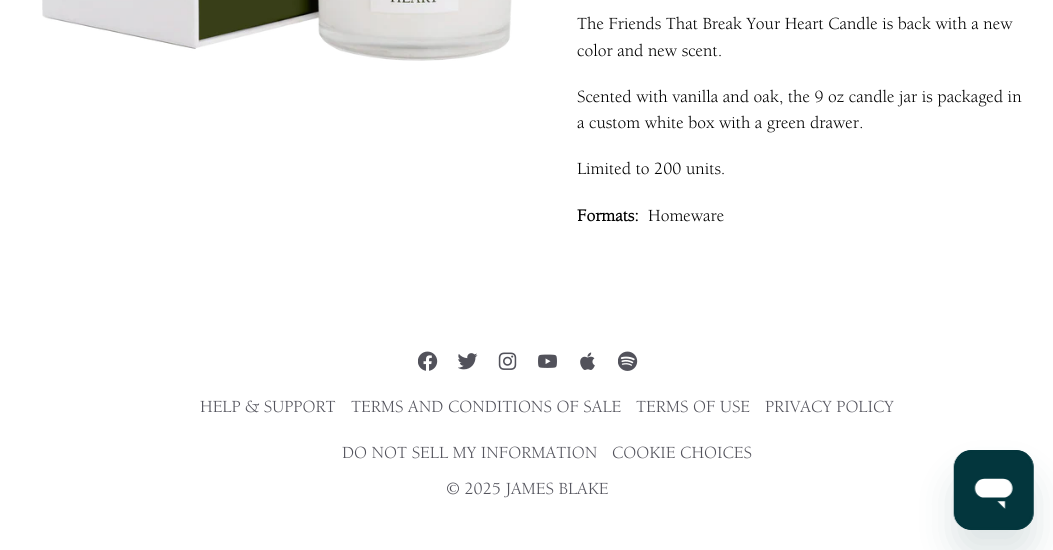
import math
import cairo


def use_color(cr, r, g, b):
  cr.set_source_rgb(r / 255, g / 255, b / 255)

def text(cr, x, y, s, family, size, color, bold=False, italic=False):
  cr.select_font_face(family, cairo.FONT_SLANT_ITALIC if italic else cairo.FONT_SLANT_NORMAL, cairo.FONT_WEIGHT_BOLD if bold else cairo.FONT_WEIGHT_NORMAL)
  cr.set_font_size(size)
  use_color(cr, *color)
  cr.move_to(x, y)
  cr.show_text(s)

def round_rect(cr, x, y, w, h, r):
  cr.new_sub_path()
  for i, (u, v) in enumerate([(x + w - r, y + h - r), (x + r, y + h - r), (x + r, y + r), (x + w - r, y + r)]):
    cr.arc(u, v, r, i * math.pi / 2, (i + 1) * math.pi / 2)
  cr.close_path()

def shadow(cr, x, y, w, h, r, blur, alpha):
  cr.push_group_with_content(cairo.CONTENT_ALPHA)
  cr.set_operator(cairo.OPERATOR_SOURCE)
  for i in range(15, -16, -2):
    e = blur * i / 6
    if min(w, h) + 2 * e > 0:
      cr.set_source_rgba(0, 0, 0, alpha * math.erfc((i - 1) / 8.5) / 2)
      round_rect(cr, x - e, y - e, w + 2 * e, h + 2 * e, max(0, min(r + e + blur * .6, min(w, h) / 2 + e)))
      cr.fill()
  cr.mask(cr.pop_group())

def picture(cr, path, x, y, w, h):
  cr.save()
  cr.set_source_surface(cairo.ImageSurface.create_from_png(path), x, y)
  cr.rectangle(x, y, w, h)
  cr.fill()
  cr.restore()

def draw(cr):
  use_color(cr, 255, 255, 255)
  cr.paint()
  picture(cr, "img_01.png", 42, 0, 470, 61)
  picture(cr, "img_02.png", 418, 351, 20, 20)
  picture(cr, "img_03.png", 458, 353, 20, 17)
  picture(cr, "img_04.png", 498, 352, 19, 18)
  picture(cr, "img_05.png", 538, 354, 19, 14)
  picture(cr, "img_06.png", 580, 352, 15, 18)
  picture(cr, "img_07.png", 618, 351, 20, 20)
  use_color(cr, 23, 73, 77)
  shadow(cr, 954, 475, 80, 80, 18, 19, 0.15)
  picture(cr, "img_08.png", 953, 450, 81, 80)
  text(cr, 577, 29, "The Friends That Break Your Heart Candle is back with a new", "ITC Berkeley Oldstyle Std", 17.5, (0, 0, 0))
  text(cr, 577, 56, "color and new scent.", "ITC Berkeley Oldstyle Std", 17.5, (0, 0, 0))
  text(cr, 577, 102, "Scented with vanilla and oak, the 9 oz candle jar is packaged in", "ITC Berkeley Oldstyle Std", 17.5, (0, 0, 0))
  text(cr, 577, 128, "a custom white box with a green drawer.", "ITC Berkeley Oldstyle Std", 17.5, (0, 0, 0))
  text(cr, 577, 174, "Limited to 200 units.", "ITC Berkeley Oldstyle Std", 17.5, (0, 0, 0))
  text(cr, 577, 221, "Formats:", "ITC Berkeley Oldstyle Std", 17.5, (0, 0, 0), bold=True)
  text(cr, 648, 221, "Homeware", "ITC Berkeley Oldstyle Std", 17.5, (0, 0, 0))
  text(cr, 200, 412, "HELP & SUPPORT", "ITC Berkeley Oldstyle Std", 17.5, (82, 82, 91))
  text(cr, 351, 412, "TERMS AND CONDITIONS OF SALE", "ITC Berkeley Oldstyle Std", 17.5, (82, 82, 91))
  text(cr, 636, 412, "TERMS OF USE", "ITC Berkeley Oldstyle Std", 17.5, (82, 82, 91))
  text(cr, 765, 412, "PRIVACY POLICY", "ITC Berkeley Oldstyle Std", 17.5, (82, 82, 91))
  text(cr, 342, 458, "DO NOT SELL MY INFORMATION", "ITC Berkeley Oldstyle Std", 17.5, (82, 82, 91))
  text(cr, 612, 458, "COOKIE CHOICES", "ITC Berkeley Oldstyle Std", 17.5, (82, 82, 91))
  text(cr, 446, 494, "© 2025 JAMES BLAKE", "ITC Berkeley Oldstyle Std", 17.5, (82, 82, 91))


surface = cairo.ImageSurface(cairo.FORMAT_RGB24, 1053, 550)
cr = cairo.Context(surface)
options = cairo.FontOptions()
options.set_hint_metrics(cairo.HINT_METRICS_OFF)
options.set_hint_style(cairo.HINT_STYLE_NONE)
cr.set_font_options(options)
cr.set_miter_limit(4)
draw(cr)
surface.write_to_png("out.png")
